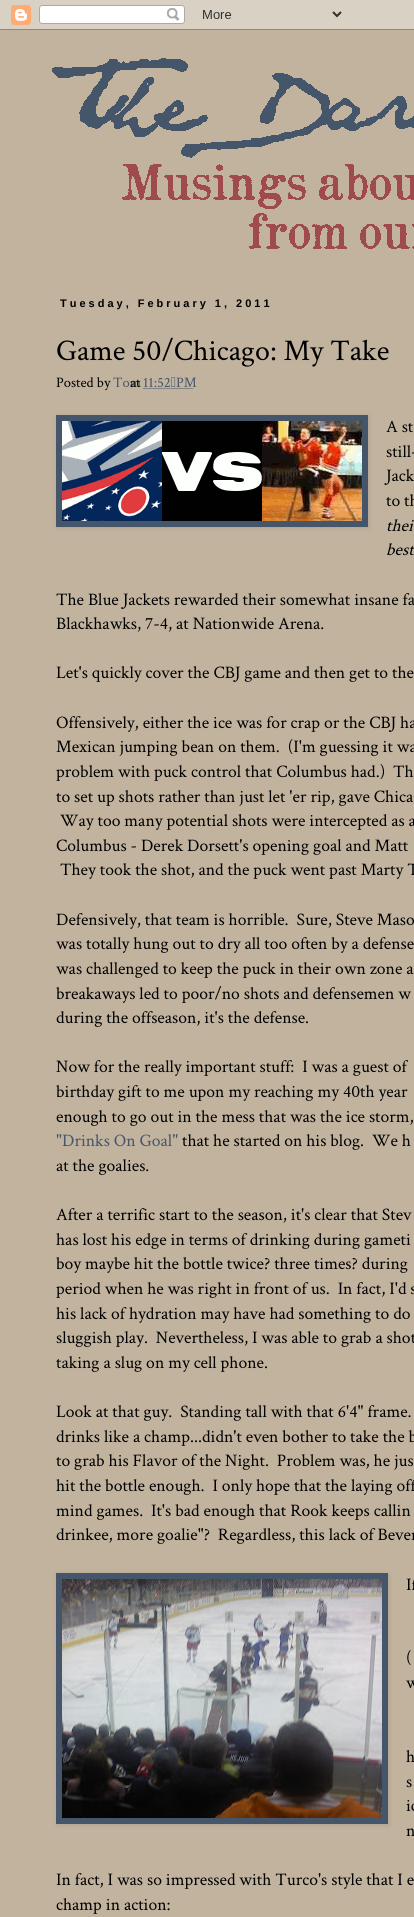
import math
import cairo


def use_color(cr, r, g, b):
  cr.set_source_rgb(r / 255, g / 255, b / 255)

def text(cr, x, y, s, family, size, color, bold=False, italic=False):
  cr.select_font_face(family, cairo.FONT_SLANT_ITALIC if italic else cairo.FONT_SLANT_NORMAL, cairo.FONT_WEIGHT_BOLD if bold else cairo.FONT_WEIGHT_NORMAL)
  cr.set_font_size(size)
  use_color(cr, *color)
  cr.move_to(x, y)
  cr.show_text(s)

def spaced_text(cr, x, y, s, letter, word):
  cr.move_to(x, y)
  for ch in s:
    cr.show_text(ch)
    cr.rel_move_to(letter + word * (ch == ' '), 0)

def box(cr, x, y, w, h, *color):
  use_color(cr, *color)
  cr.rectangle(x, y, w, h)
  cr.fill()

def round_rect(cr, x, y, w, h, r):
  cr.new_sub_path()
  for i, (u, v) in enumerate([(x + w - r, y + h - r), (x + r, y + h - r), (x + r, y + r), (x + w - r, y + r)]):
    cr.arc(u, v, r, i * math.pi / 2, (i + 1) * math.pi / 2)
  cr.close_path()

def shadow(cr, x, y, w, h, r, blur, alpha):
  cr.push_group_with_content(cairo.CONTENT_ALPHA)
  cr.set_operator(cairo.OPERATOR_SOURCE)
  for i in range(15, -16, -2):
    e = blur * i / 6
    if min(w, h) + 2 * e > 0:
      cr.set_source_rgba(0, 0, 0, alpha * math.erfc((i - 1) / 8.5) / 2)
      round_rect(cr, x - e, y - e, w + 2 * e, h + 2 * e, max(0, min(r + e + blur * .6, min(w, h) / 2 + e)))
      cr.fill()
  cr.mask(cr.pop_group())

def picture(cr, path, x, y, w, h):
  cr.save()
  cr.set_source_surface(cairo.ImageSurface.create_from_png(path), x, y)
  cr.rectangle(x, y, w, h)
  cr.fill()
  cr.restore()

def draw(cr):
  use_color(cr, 193, 179, 158)
  cr.paint()
  picture(cr, "img_01.png", 0, 0, 414, 30)
  picture(cr, "img_02.png", 52, 58, 362, 191)
  cr.new_path()
  cr.move_to(143.5, 388.5)
  cr.line_to(193, 388.5)
  use_color(cr, 69, 85, 106)
  cr.set_line_width(1)
  cr.set_dash([1, 1])
  cr.stroke()
  use_color(cr, 0, 0, 0)
  shadow(cr, 57, 416, 312, 112, 0, 2.5, 0.1)
  box(cr, 56, 415, 312, 112, 69, 85, 106)
  picture(cr, "img_03.png", 62, 421, 300, 100)
  use_color(cr, 0, 0, 0)
  shadow(cr, 57, 1574, 332, 251, 0, 2.5, 0.1)
  box(cr, 56, 1573, 332, 251, 69, 85, 106)
  picture(cr, "img_04.png", 62, 1579, 320, 239)
  cr.select_font_face("Liberation Sans", cairo.FONT_SLANT_NORMAL, cairo.FONT_WEIGHT_BOLD)
  cr.set_font_size(11)
  use_color(cr, 0, 0, 0)
  spaced_text(cr, 60, 307, "Tuesday, February 1, 2011", 3, 0)
  text(cr, 56, 360, "Game 50/Chicago: My Take", "Crimson Text", 30, (0, 0, 0))
  text(cr, 56, 387, "Posted by", "Crimson Text", 14.5, (0, 0, 0))
  text(cr, 113, 387, "Tom", "Crimson Text", 14.5, (69, 85, 106))
  text(cr, 143, 387, "11:52 PM", "Crimson Text", 14.5, (69, 85, 106))
  text(cr, 130, 387, "at", "Crimson Text", 14.5, (0, 0, 0))
  text(cr, 386, 432, "A st", "Crimson Text", 17.6, (0, 0, 0))
  text(cr, 386, 457, "still-", "Crimson Text", 17.6, (0, 0, 0))
  text(cr, 386, 481, "Jack", "Crimson Text", 17.6, (0, 0, 0))
  text(cr, 386, 506, "to th", "Crimson Text", 17.6, (0, 0, 0))
  text(cr, 386, 531, "thei", "Crimson Text", 17.6, (0, 0, 0), italic=True)
  text(cr, 386, 555, "best", "Crimson Text", 17.6, (0, 0, 0), italic=True)
  text(cr, 56, 605, "The Blue Jackets rewarded their somewhat insane fa", "Crimson Text", 17.6, (0, 0, 0))
  text(cr, 56, 629, "Blackhawks, 7-4, at Nationwide Arena.", "Crimson Text", 17.6, (0, 0, 0))
  text(cr, 56, 678, "Let's quickly cover the CBJ game and then get to the", "Crimson Text", 17.6, (0, 0, 0))
  text(cr, 56, 728, "Offensively, either the ice was for crap or the CBJ ha", "Crimson Text", 17.6, (0, 0, 0))
  text(cr, 56, 752, "Mexican jumping bean on them.  (I'm guessing it wa", "Crimson Text", 17.6, (0, 0, 0))
  text(cr, 56, 777, "problem with puck control that Columbus had.)  Th", "Crimson Text", 17.6, (0, 0, 0))
  text(cr, 56, 802, "to set up shots rather than just let 'er rip, gave Chica", "Crimson Text", 17.6, (0, 0, 0))
  text(cr, 60, 826, "Way too many potential shots were intercepted as a", "Crimson Text", 17.6, (0, 0, 0))
  text(cr, 56, 851, "Columbus - Derek Dorsett's opening goal and Matt", "Crimson Text", 17.6, (0, 0, 0))
  text(cr, 60, 875, "They took the shot, and the puck went past Marty T", "Crimson Text", 17.6, (0, 0, 0))
  text(cr, 56, 925, "Defensively, that team is horrible.  Sure, Steve Maso", "Crimson Text", 17.6, (0, 0, 0))
  text(cr, 56, 949, "was totally hung out to dry all too often by a defense", "Crimson Text", 17.6, (0, 0, 0))
  text(cr, 56, 974, "was challenged to keep the puck in their own zone a", "Crimson Text", 17.6, (0, 0, 0))
  text(cr, 56, 999, "breakaways led to poor/no shots and defensemen w", "Crimson Text", 17.6, (0, 0, 0))
  text(cr, 56, 1023, "during the offseason, it's the defense.", "Crimson Text", 17.6, (0, 0, 0))
  text(cr, 56, 1072, "Now for the really important stuff:  I was a guest of", "Crimson Text", 17.6, (0, 0, 0))
  text(cr, 56, 1097, "birthday gift to me upon my reaching my 40th year", "Crimson Text", 17.6, (0, 0, 0))
  text(cr, 56, 1122, "enough to go out in the mess that was the ice storm,", "Crimson Text", 17.6, (0, 0, 0))
  text(cr, 56, 1146, "\"Drinks On Goal\"", "Crimson Text", 17.6, (69, 85, 106))
  text(cr, 182, 1146, "that he started on his blog.  We h", "Crimson Text", 17.6, (0, 0, 0))
  text(cr, 56, 1171, "at the goalies.", "Crimson Text", 17.6, (0, 0, 0))
  text(cr, 56, 1220, "After a terrific start to the season, it's clear that Stev", "Crimson Text", 17.6, (0, 0, 0))
  text(cr, 56, 1245, "has lost his edge in terms of drinking during gameti", "Crimson Text", 17.6, (0, 0, 0))
  text(cr, 56, 1269, "boy maybe hit the bottle twice? three times? during", "Crimson Text", 17.6, (0, 0, 0))
  text(cr, 56, 1294, "period when he was right in front of us.  In fact, I'd s", "Crimson Text", 17.6, (0, 0, 0))
  text(cr, 56, 1319, "his lack of hydration may have had something to do", "Crimson Text", 17.6, (0, 0, 0))
  text(cr, 56, 1343, "sluggish play.  Nevertheless, I was able to grab a shot", "Crimson Text", 17.6, (0, 0, 0))
  text(cr, 56, 1368, "taking a slug on my cell phone.", "Crimson Text", 17.6, (0, 0, 0))
  text(cr, 56, 1417, "Look at that guy.  Standing tall with that 6'4\" frame.", "Crimson Text", 17.6, (0, 0, 0))
  text(cr, 56, 1442, "drinks like a champ...didn't even bother to take the b", "Crimson Text", 17.6, (0, 0, 0))
  text(cr, 56, 1466, "to grab his Flavor of the Night.  Problem was, he jus", "Crimson Text", 17.6, (0, 0, 0))
  text(cr, 56, 1491, "hit the bottle enough.  I only hope that the laying off", "Crimson Text", 17.6, (0, 0, 0))
  text(cr, 56, 1516, "mind games.  It's bad enough that Rook keeps callin", "Crimson Text", 17.6, (0, 0, 0))
  text(cr, 56, 1540, "drinkee, more goalie\"?  Regardless, this lack of Bever", "Crimson Text", 17.6, (0, 0, 0))
  text(cr, 406, 1590, "If", "Crimson Text", 17.6, (0, 0, 0))
  text(cr, 406, 1663, "(", "Crimson Text", 17.6, (0, 0, 0))
  text(cr, 406, 1688, "w", "Crimson Text", 17.6, (0, 0, 0))
  text(cr, 406, 1762, "h", "Crimson Text", 17.6, (0, 0, 0))
  text(cr, 406, 1787, "s", "Crimson Text", 17.6, (0, 0, 0))
  text(cr, 406, 1811, "ic", "Crimson Text", 17.6, (0, 0, 0))
  text(cr, 406, 1836, "n", "Crimson Text", 17.6, (0, 0, 0))
  text(cr, 56, 1885, "In fact, I was so impressed with Turco's style that I e", "Crimson Text", 17.6, (0, 0, 0))
  text(cr, 56, 1910, "champ in action:", "Crimson Text", 17.6, (0, 0, 0))


surface = cairo.ImageSurface(cairo.FORMAT_RGB24, 414, 1917)
cr = cairo.Context(surface)
options = cairo.FontOptions()
options.set_hint_metrics(cairo.HINT_METRICS_OFF)
options.set_hint_style(cairo.HINT_STYLE_NONE)
cr.set_font_options(options)
cr.set_miter_limit(4)
draw(cr)
surface.write_to_png("out.png")
